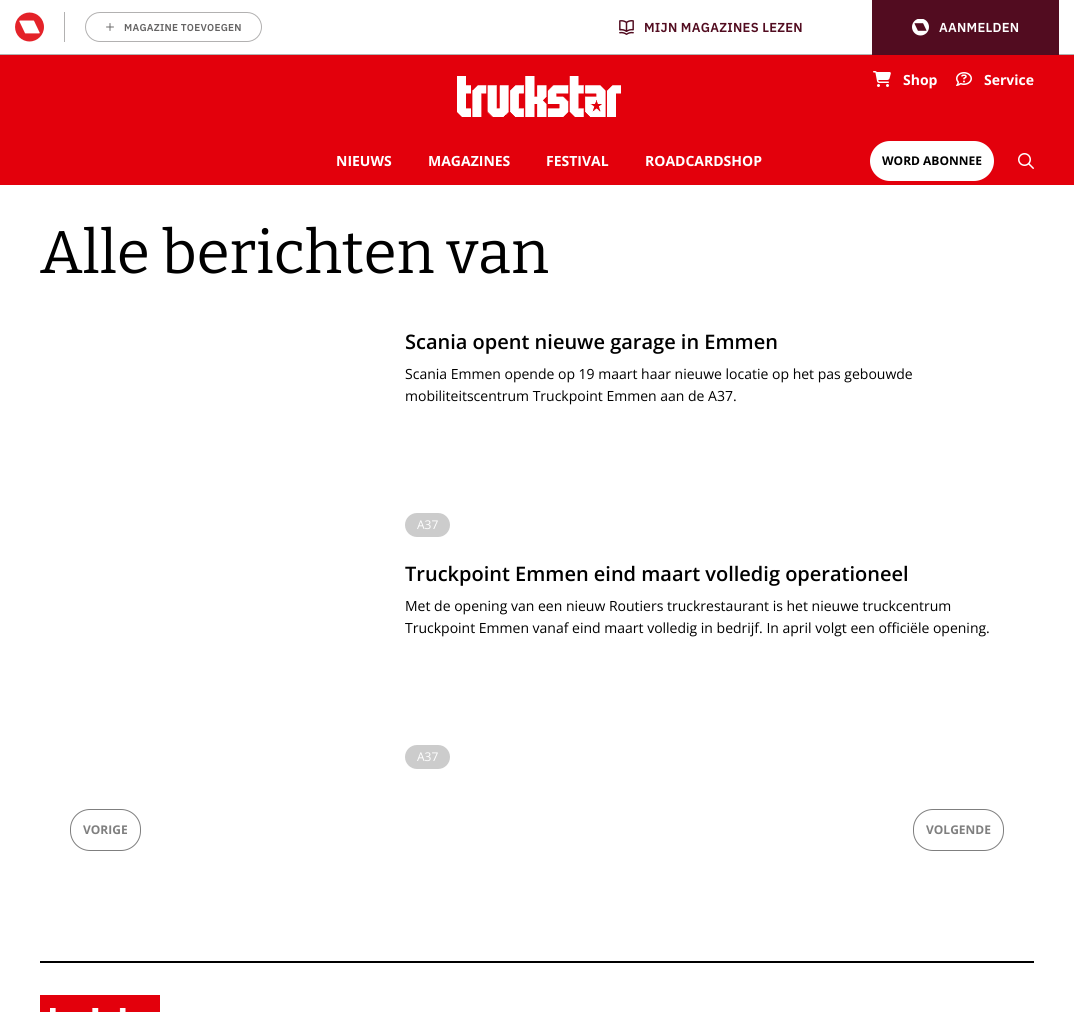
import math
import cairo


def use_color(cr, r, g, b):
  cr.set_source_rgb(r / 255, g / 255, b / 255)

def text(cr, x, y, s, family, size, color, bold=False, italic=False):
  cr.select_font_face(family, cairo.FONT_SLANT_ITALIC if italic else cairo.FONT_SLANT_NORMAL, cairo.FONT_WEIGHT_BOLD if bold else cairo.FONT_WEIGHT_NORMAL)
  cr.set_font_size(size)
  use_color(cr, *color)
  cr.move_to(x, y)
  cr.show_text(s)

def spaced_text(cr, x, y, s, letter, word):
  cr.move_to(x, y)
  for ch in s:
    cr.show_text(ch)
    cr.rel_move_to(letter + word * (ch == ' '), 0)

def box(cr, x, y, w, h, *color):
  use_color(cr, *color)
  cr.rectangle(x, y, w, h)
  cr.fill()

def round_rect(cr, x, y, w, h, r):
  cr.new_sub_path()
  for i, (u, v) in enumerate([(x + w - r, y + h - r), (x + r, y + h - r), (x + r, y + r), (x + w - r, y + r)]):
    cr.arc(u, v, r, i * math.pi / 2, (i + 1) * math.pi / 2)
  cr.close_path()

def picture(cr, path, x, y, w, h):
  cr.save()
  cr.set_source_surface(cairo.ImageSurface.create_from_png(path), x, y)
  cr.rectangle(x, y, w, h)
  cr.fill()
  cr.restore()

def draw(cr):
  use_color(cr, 255, 255, 255)
  cr.paint()
  box(cr, 0, 54, 1074, 1, 178, 178, 178)
  box(cr, 64, 12, 1, 30, 178, 177, 177)
  picture(cr, "img_01.png", 15, 12, 29, 30)
  round_rect(cr, 85.5, 12.5, 176, 29, 14.5)
  cr.set_line_width(1)
  cr.stroke()
  picture(cr, "img_02.png", 106, 23, 8, 8)
  picture(cr, "img_03.png", 619, 20, 15, 15)
  box(cr, 872, 0, 187, 55, 82, 12, 32)
  picture(cr, "img_04.png", 912, 19, 17, 17)
  box(cr, 0, 55, 1074, 130, 227, 0, 12)
  picture(cr, "img_05.png", 457, 76, 164, 41)
  picture(cr, "img_06.png", 873, 71, 18, 16)
  picture(cr, "img_07.png", 956, 72, 16, 14)
  use_color(cr, 255, 255, 255)
  round_rect(cr, 870, 141, 124, 40, 20)
  cr.fill()
  picture(cr, "img_08.png", 1018, 153, 16, 16)
  use_color(cr, 204, 204, 204)
  round_rect(cr, 405, 513, 45, 24, 12)
  cr.fill()
  round_rect(cr, 405, 745, 45, 24, 12)
  cr.fill()
  round_rect(cr, 70.5, 809.5, 70, 41, 19.5)
  use_color(cr, 127, 127, 127)
  cr.stroke()
  round_rect(cr, 913.5, 809.5, 90, 41, 19.5)
  cr.stroke()
  box(cr, 40, 961, 994, 2, 0, 0, 0)
  picture(cr, "img_09.png", 40, 995, 120, 17)
  cr.select_font_face("IBM Plex Sans SemiBold")
  cr.set_font_size(10)
  use_color(cr, 100, 99, 99)
  spaced_text(cr, 124, 31, "MAGAZINE TOEVOEGEN", 0.25, 0)
  cr.set_font_size(13)
  use_color(cr, 82, 12, 32)
  spaced_text(cr, 644, 32, "MIJN MAGAZINES LEZEN", 0.25, 0)
  use_color(cr, 255, 255, 255)
  spaced_text(cr, 939, 32, "AANMELDEN", 0.25, 0)
  text(cr, 903, 85, "Shop", "Open Sans", 14, (255, 255, 255), bold=True)
  text(cr, 984, 85, "Service", "Open Sans", 14, (255, 255, 255), bold=True)
  text(cr, 336, 166, "NIEUWS", "Open Sans", 14, (255, 255, 255), bold=True)
  text(cr, 428, 166, "MAGAZINES", "Open Sans", 14, (255, 255, 255), bold=True)
  text(cr, 546, 166, "FESTIVAL", "Open Sans", 14, (255, 255, 255), bold=True)
  text(cr, 645, 166, "ROADCARDSHOP", "Open Sans", 14, (255, 255, 255), bold=True)
  text(cr, 882, 165, "WORD ABONNEE", "Open Sans", 12, (0, 0, 0), bold=True)
  text(cr, 40, 273, "Alle berichten van", "Bitter", 60, (0, 0, 0))
  text(cr, 405, 349, "Scania opent nieuwe garage in Emmen", "Open Sans SemiBold", 20, (0, 0, 0))
  text(cr, 405, 379, "Scania Emmen opende op 19 maart haar nieuwe locatie op het pas gebouwde", "Open Sans", 14, (0, 0, 0))
  text(cr, 405, 401, "mobiliteitscentrum Truckpoint Emmen aan de A37.", "Open Sans", 14, (0, 0, 0))
  text(cr, 417, 529, "A37", "Open Sans", 12, (255, 255, 255))
  text(cr, 405, 581, "Truckpoint Emmen eind maart volledig operationeel", "Open Sans SemiBold", 20, (0, 0, 0))
  text(cr, 405, 611, "Met de opening van een nieuw Routiers truckrestaurant is het nieuwe truckcentrum", "Open Sans", 14, (0, 0, 0))
  text(cr, 405, 633, "Truckpoint Emmen vanaf eind maart volledig in bedrijf. In april volgt een officiële opening.", "Open Sans", 14, (0, 0, 0))
  text(cr, 417, 761, "A37", "Open Sans", 12, (255, 255, 255))
  text(cr, 83, 834, "VORIGE", "Open Sans", 12, (127, 127, 127), bold=True)
  text(cr, 926, 834, "VOLGENDE", "Open Sans", 12, (127, 127, 127), bold=True)


surface = cairo.ImageSurface(cairo.FORMAT_RGB24, 1074, 1012)
cr = cairo.Context(surface)
options = cairo.FontOptions()
options.set_hint_metrics(cairo.HINT_METRICS_OFF)
options.set_hint_style(cairo.HINT_STYLE_NONE)
cr.set_font_options(options)
cr.set_miter_limit(4)
draw(cr)
surface.write_to_png("out.png")
